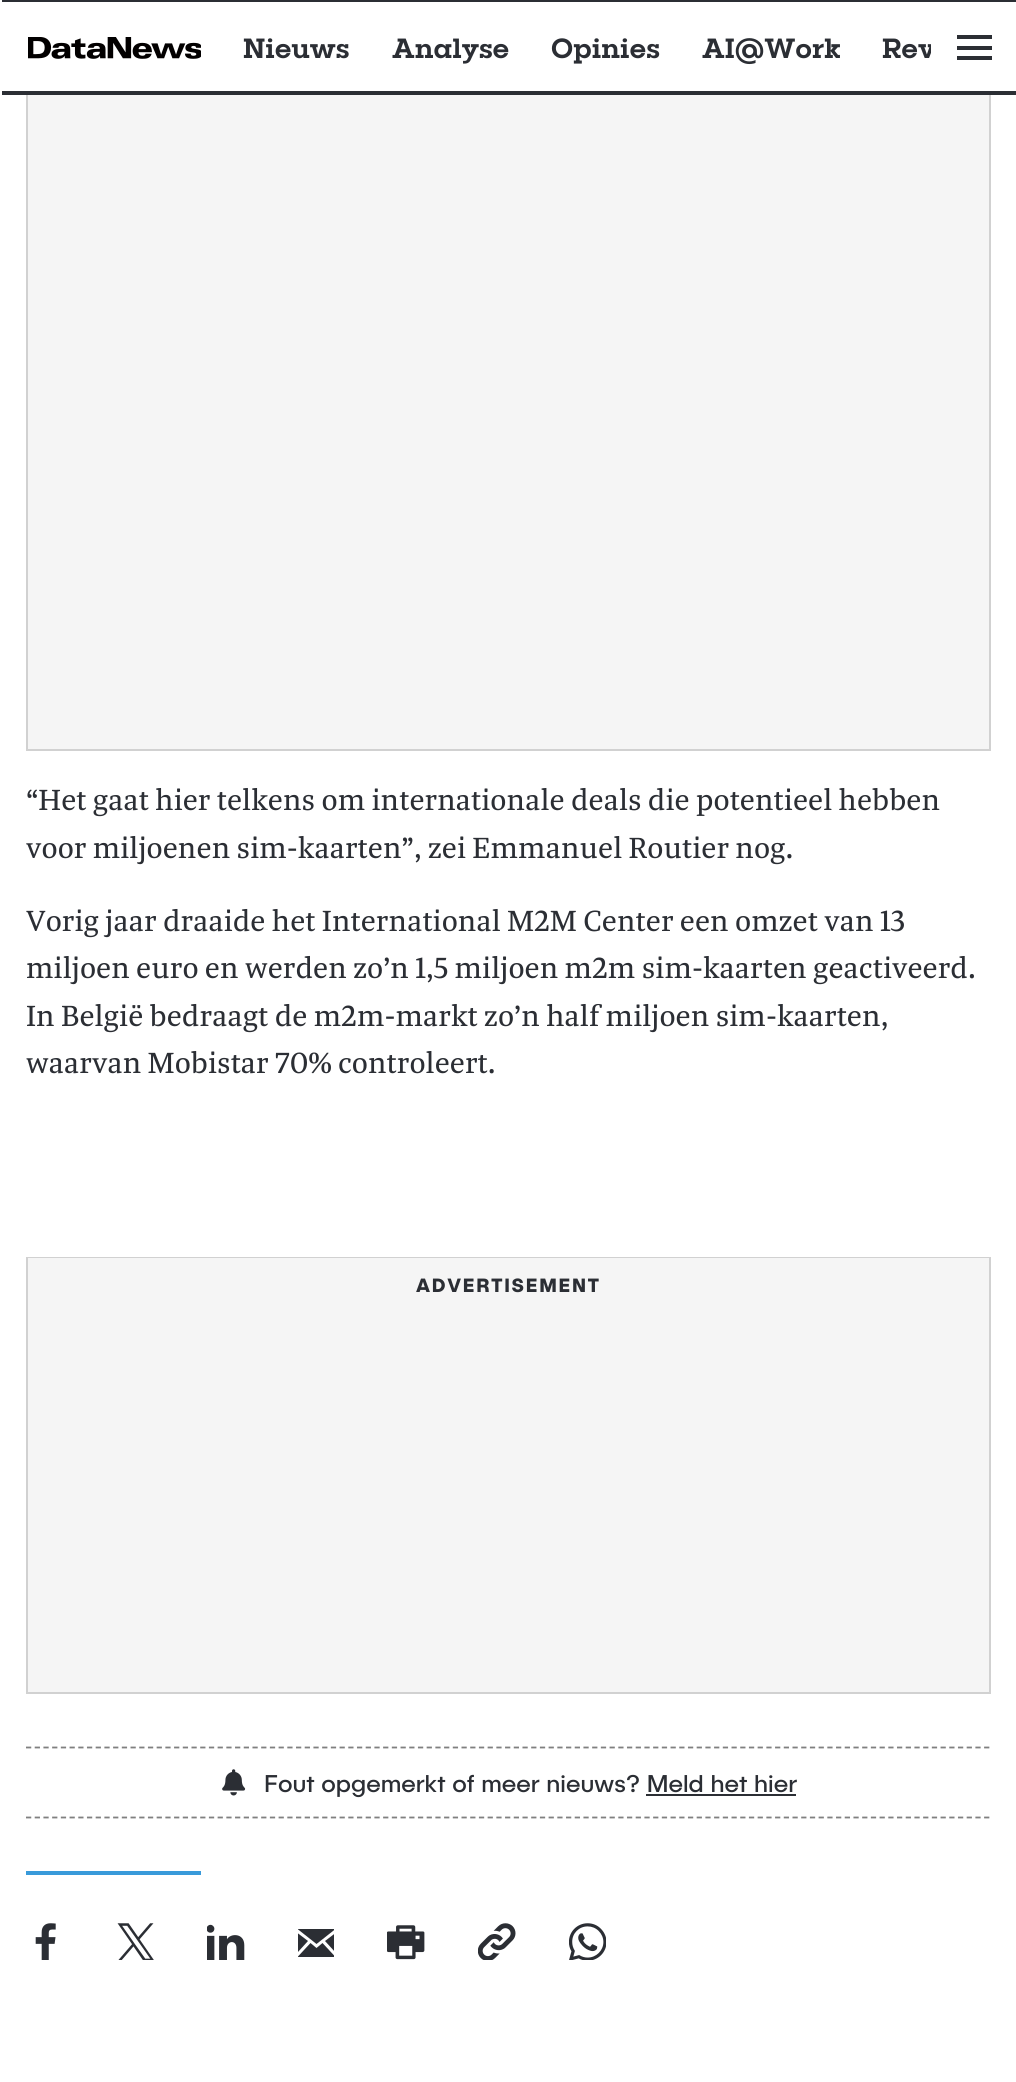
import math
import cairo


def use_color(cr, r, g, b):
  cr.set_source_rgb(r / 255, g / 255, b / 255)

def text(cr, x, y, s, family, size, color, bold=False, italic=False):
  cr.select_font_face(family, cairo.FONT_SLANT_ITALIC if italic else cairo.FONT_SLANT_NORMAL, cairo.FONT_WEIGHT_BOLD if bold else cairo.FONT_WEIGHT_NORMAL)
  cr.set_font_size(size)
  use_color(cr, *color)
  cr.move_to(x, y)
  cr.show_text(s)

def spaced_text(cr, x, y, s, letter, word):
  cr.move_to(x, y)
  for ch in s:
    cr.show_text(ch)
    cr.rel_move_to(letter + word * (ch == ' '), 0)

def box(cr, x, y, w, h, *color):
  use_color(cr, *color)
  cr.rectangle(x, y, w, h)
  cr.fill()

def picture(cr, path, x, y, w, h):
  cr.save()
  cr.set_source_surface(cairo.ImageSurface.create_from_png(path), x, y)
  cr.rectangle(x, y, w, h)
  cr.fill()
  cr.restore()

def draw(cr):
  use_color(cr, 255, 255, 255)
  cr.paint()
  box(cr, 28, 95, 961, 654, 245, 245, 245)
  cr.rectangle(27, -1, 963, 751)
  use_color(cr, 209, 209, 209)
  cr.stroke()
  box(cr, 26, 2, 965, 89, 255, 255, 255)
  box(cr, 2, 0, 1014, 2, 43, 46, 52)
  box(cr, 2, 91, 1014, 4, 43, 46, 52)
  picture(cr, "img_01.png", 28, 37, 173, 22)
  box(cr, 957, 35, 35, 4, 43, 46, 52)
  box(cr, 957, 46, 35, 4, 43, 46, 52)
  box(cr, 957, 56, 35, 4, 43, 46, 52)
  box(cr, 28, 1311, 961, 381, 245, 245, 245)
  cr.rectangle(27, 1258, 963, 435)
  use_color(cr, 209, 209, 209)
  cr.stroke()
  box(cr, 28, 1258, 961, 53, 245, 245, 245)
  cr.new_path()
  cr.move_to(26, 1747.5)
  cr.line_to(990.5, 1747.5)
  use_color(cr, 128, 128, 128)
  cr.set_line_width(1.8)
  cr.set_dash([5.25, 3.46])
  cr.stroke()
  cr.new_path()
  cr.move_to(26, 1817.5)
  cr.line_to(990.5, 1817.5)
  cr.stroke()
  picture(cr, "img_02.png", 222, 1769, 24, 27)
  box(cr, 646, 1794, 150, 2, 43, 46, 52)
  box(cr, 26, 1871, 175, 4, 57, 154, 218)
  picture(cr, "img_03.png", 35, 1923, 21, 37)
  picture(cr, "img_04.png", 117, 1923, 37, 37)
  picture(cr, "img_05.png", 207, 1924, 38, 36)
  cr.save()
  cr.rectangle(298, 1923, 36, 37)
  cr.clip()
  use_color(cr, 43, 46, 52)
  cr.new_path()
  cr.move_to(316.5, 1944)
  cr.line_to(297.5, 1929)
  cr.line_to(335.5, 1929)
  cr.close_path()
  cr.move_to(308, 1941)
  cr.line_to(297.5, 1933)
  cr.line_to(297.5, 1952.5)
  cr.close_path()
  cr.move_to(325, 1941)
  cr.line_to(335.5, 1952.5)
  cr.line_to(335.5, 1933)
  cr.close_path()
  cr.move_to(322.5, 1943)
  cr.line_to(316.5, 1948)
  cr.line_to(310.5, 1943)
  cr.line_to(297.5, 1957)
  cr.line_to(335.5, 1957)
  cr.close_path()
  cr.fill()
  cr.restore()
  picture(cr, "img_06.png", 387, 1925, 38, 35)
  picture(cr, "img_07.png", 478, 1923, 38, 37)
  picture(cr, "img_08.png", 569, 1923, 37, 37)
  text(cr, 243, 58, "Nieuws", "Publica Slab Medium", 28, (43, 46, 52))
  text(cr, 392, 58, "Analyse", "Publica Slab Medium", 28, (43, 46, 52))
  text(cr, 551, 58, "Opinies", "Publica Slab Medium", 28, (43, 46, 52))
  text(cr, 702, 58, "AI@Work", "Publica Slab Medium", 28, (43, 46, 52))
  cr.save()
  cr.rectangle(28, 2, 903, 89)
  cr.clip()
  text(cr, 882, 58, "Rev", "Publica Slab Medium", 28, (43, 46, 52))
  cr.restore()
  text(cr, 26, 810, "“Het gaat hier telkens om internationale deals die potentieel hebben", "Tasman", 31.5, (43, 46, 52))
  text(cr, 26, 858, "voor miljoenen sim-kaarten”, zei Emmanuel Routier nog.", "Tasman", 31.5, (43, 46, 52))
  text(cr, 26, 931, "Vorig jaar draaide het International M2M Center een omzet van 13", "Tasman", 31.5, (43, 46, 52))
  text(cr, 26, 978, "miljoen euro en werden zo’n 1,5 miljoen m2m sim-kaarten geactiveerd.", "Tasman", 31.5, (43, 46, 52))
  text(cr, 26, 1026, "In België bedraagt de m2m-markt zo’n half miljoen sim-kaarten,", "Tasman", 31.5, (43, 46, 52))
  text(cr, 26, 1073, "waarvan Mobistar 70% controleert.", "Tasman", 31.5, (43, 46, 52))
  cr.select_font_face("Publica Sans", cairo.FONT_SLANT_NORMAL, cairo.FONT_WEIGHT_BOLD)
  cr.set_font_size(19.25)
  spaced_text(cr, 416, 1292, "ADVERTISEMENT", 1.75, 0)
  text(cr, 264, 1792, "Fout opgemerkt of meer nieuws? Meld het hier", "Publica Sans", 24.5, (43, 46, 52))


surface = cairo.ImageSurface(cairo.FORMAT_RGB24, 1016, 2082)
cr = cairo.Context(surface)
options = cairo.FontOptions()
options.set_hint_metrics(cairo.HINT_METRICS_OFF)
options.set_hint_style(cairo.HINT_STYLE_NONE)
cr.set_font_options(options)
cr.set_miter_limit(4)
draw(cr)
surface.write_to_png("out.png")
